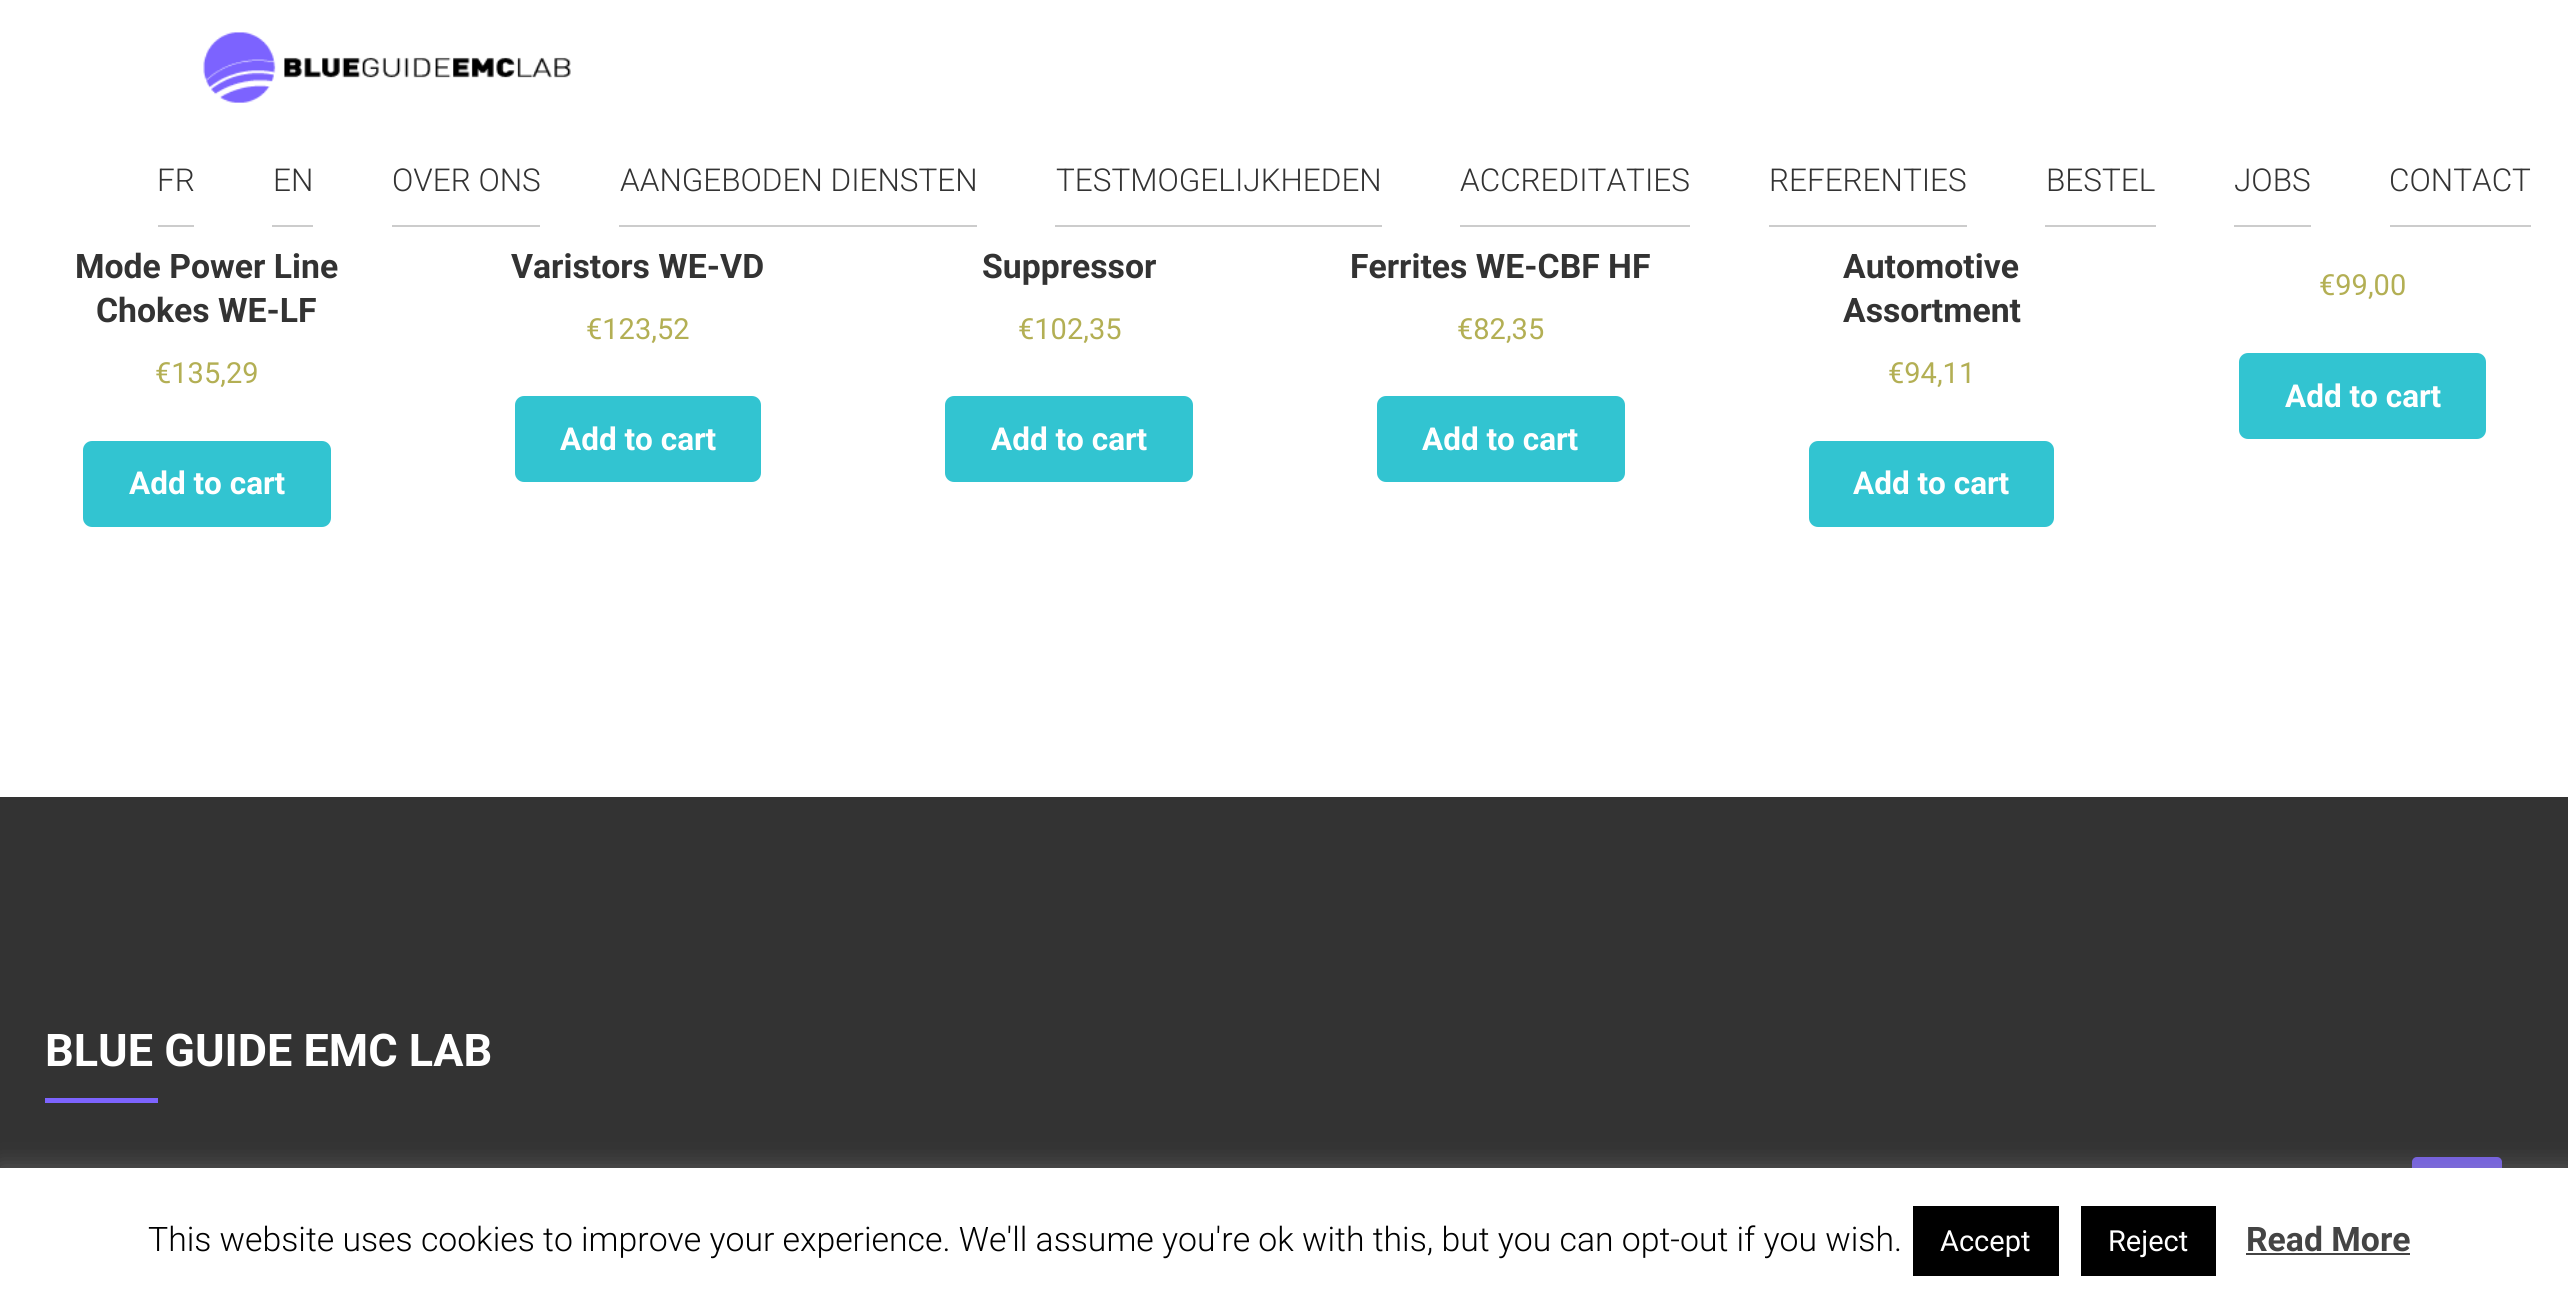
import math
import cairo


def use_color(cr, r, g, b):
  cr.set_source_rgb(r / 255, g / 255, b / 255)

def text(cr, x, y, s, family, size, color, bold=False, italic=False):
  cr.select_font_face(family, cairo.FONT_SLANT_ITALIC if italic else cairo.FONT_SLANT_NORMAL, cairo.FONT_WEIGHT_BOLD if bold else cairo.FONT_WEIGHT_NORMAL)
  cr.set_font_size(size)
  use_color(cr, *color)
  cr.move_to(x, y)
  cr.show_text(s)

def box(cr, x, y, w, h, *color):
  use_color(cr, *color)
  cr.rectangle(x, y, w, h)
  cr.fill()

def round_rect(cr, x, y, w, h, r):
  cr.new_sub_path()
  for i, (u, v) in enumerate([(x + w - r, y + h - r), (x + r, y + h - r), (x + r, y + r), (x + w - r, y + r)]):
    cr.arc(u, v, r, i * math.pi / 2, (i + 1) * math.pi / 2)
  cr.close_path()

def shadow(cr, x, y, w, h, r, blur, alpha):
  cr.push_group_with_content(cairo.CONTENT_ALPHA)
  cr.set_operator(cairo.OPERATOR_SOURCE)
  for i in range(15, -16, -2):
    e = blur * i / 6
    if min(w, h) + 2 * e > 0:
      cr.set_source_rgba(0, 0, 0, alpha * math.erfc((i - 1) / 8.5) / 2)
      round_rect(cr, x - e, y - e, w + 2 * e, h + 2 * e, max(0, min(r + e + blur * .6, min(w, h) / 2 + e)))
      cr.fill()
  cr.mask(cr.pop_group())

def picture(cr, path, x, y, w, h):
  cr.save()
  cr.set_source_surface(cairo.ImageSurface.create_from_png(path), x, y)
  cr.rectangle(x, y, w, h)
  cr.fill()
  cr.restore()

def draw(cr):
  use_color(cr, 255, 255, 255)
  cr.paint()
  picture(cr, "img_01.png", 203, 32, 368, 71)
  box(cr, 158, 225, 36, 2, 204, 204, 204)
  box(cr, 272, 225, 41, 2, 204, 204, 204)
  box(cr, 392, 225, 148, 2, 204, 204, 204)
  box(cr, 619, 225, 358, 2, 204, 204, 204)
  box(cr, 1055, 225, 327, 2, 204, 204, 204)
  box(cr, 1460, 225, 230, 2, 204, 204, 204)
  box(cr, 1769, 225, 198, 2, 204, 204, 204)
  box(cr, 2045, 225, 111, 2, 204, 204, 204)
  box(cr, 2234, 225, 77, 2, 204, 204, 204)
  box(cr, 2390, 225, 141, 2, 204, 204, 204)
  use_color(cr, 50, 196, 209)
  round_rect(cr, 83, 441, 248, 86, 9)
  cr.fill()
  round_rect(cr, 515, 396, 246, 86, 9)
  cr.fill()
  round_rect(cr, 945, 396, 248, 86, 9)
  cr.fill()
  round_rect(cr, 1377, 396, 248, 86, 9)
  cr.fill()
  round_rect(cr, 1809, 441, 245, 86, 9)
  cr.fill()
  round_rect(cr, 2239, 353, 247, 86, 9)
  cr.fill()
  box(cr, 0, 797, 2568, 371, 51, 51, 51)
  box(cr, 45, 1098, 113, 5, 125, 100, 255)
  use_color(cr, 114, 93, 224)
  round_rect(cr, 2412, 1157, 90, 90, 5)
  cr.fill()
  use_color(cr, 172, 171, 171)
  shadow(cr, 0, 1166, 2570, 146, 0, 11, 0.3)
  box(cr, 0, 1168, 2568, 146, 255, 255, 255)
  box(cr, 1913, 1206, 146, 70, 0, 0, 0)
  box(cr, 2081, 1206, 135, 70, 0, 0, 0)
  box(cr, 2246, 1253, 164, 2, 68, 68, 68)
  text(cr, 157, 191, "FR", "Roboto Light", 31.5, (51, 51, 51))
  text(cr, 273, 191, "EN", "Roboto Light", 31.5, (51, 51, 51))
  text(cr, 392, 191, "OVER ONS", "Roboto Light", 31.5, (51, 51, 51))
  text(cr, 620, 191, "AANGEBODEN DIENSTEN", "Roboto Light", 31.5, (51, 51, 51))
  text(cr, 1056, 191, "TESTMOGELIJKHEDEN", "Roboto Light", 31.5, (51, 51, 51))
  text(cr, 1460, 191, "ACCREDITATIES", "Roboto Light", 31.5, (51, 51, 51))
  text(cr, 1769, 191, "REFERENTIES", "Roboto Light", 31.5, (51, 51, 51))
  text(cr, 2046, 191, "BESTEL", "Roboto Light", 31.5, (51, 51, 51))
  text(cr, 2234, 191, "JOBS", "Roboto Light", 31.5, (51, 51, 51))
  text(cr, 2389, 191, "CONTACT", "Roboto Light", 31.5, (51, 51, 51))
  text(cr, 75, 278, "Mode Power Line", "Roboto", 33.75, (51, 51, 51), bold=True)
  text(cr, 96, 322, "Chokes WE-LF", "Roboto", 33.75, (51, 51, 51), bold=True)
  text(cr, 155, 383, "€135,29", "Roboto", 29, (179, 175, 84))
  text(cr, 129, 494, "Add to cart", "Roboto", 31.5, (255, 255, 255), bold=True)
  text(cr, 511, 278, "Varistors WE-VD", "Roboto", 33.75, (51, 51, 51), bold=True)
  text(cr, 586, 339, "€123,52", "Roboto", 29, (179, 175, 84))
  text(cr, 560, 450, "Add to cart", "Roboto", 31.5, (255, 255, 255), bold=True)
  text(cr, 982, 278, "Suppressor", "Roboto", 33.75, (51, 51, 51), bold=True)
  text(cr, 1018, 339, "€102,35", "Roboto", 29, (179, 175, 84))
  text(cr, 991, 450, "Add to cart", "Roboto", 31.5, (255, 255, 255), bold=True)
  text(cr, 1350, 278, "Ferrites WE-CBF HF", "Roboto", 33.75, (51, 51, 51), bold=True)
  text(cr, 1457, 339, "€82,35", "Roboto", 29, (179, 175, 84))
  text(cr, 1422, 450, "Add to cart", "Roboto", 31.5, (255, 255, 255), bold=True)
  text(cr, 1843, 278, "Automotive", "Roboto", 33.75, (51, 51, 51), bold=True)
  text(cr, 1843, 322, "Assortment", "Roboto", 33.75, (51, 51, 51), bold=True)
  text(cr, 1888, 383, "€94,11", "Roboto", 29, (179, 175, 84))
  text(cr, 1853, 494, "Add to cart", "Roboto", 31.5, (255, 255, 255), bold=True)
  text(cr, 2319, 295, "€99,00", "Roboto", 29, (179, 175, 84))
  text(cr, 2285, 407, "Add to cart", "Roboto", 31.5, (255, 255, 255), bold=True)
  text(cr, 45, 1066, "BLUE GUIDE EMC LAB", "Roboto", 45, (255, 255, 255), bold=True)
  text(cr, 148, 1251, "This website uses cookies to improve your experience. We'll assume you're ok with this, but you can opt-out if you wish.", "Roboto Light", 33.75, (0, 0, 0))
  text(cr, 1940, 1251, "Accept", "Roboto", 29, (255, 255, 255))
  text(cr, 2108, 1251, "Reject", "Roboto", 29, (255, 255, 255))
  text(cr, 2246, 1251, "Read More", "Roboto", 33.75, (68, 68, 68), bold=True)


surface = cairo.ImageSurface(cairo.FORMAT_RGB24, 2568, 1314)
cr = cairo.Context(surface)
options = cairo.FontOptions()
options.set_hint_metrics(cairo.HINT_METRICS_OFF)
options.set_hint_style(cairo.HINT_STYLE_NONE)
cr.set_font_options(options)
cr.set_miter_limit(4)
draw(cr)
surface.write_to_png("out.png")
